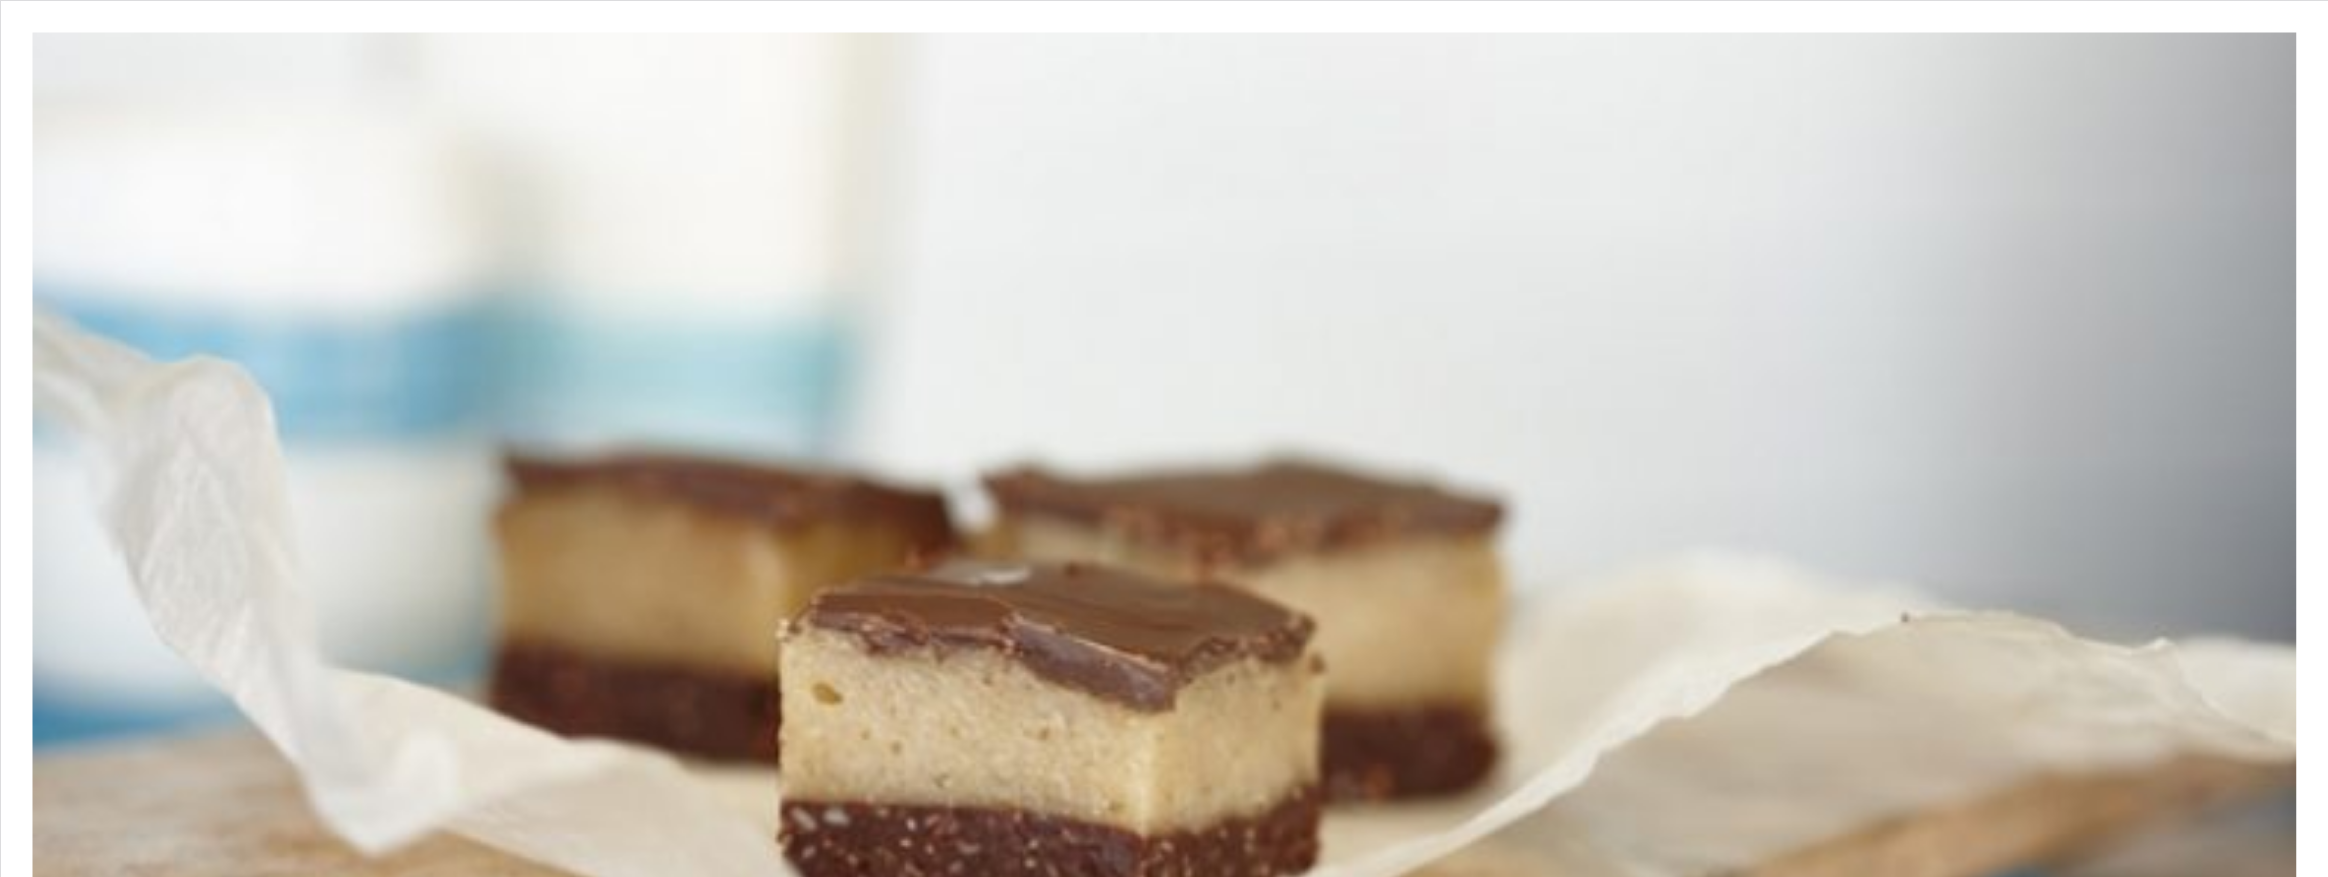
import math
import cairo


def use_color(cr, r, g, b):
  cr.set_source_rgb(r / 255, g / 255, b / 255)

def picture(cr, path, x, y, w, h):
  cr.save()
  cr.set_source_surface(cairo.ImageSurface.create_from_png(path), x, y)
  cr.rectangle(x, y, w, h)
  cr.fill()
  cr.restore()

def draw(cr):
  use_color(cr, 255, 255, 255)
  cr.paint()
  cr.rectangle(0.5, 0.5, 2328, 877)
  use_color(cr, 220, 220, 222)
  cr.set_line_width(1)
  cr.stroke()
  picture(cr, "img_01.png", 32, 32, 2265, 845)


surface = cairo.ImageSurface(cairo.FORMAT_RGB24, 2328, 877)
cr = cairo.Context(surface)
options = cairo.FontOptions()
options.set_hint_metrics(cairo.HINT_METRICS_OFF)
options.set_hint_style(cairo.HINT_STYLE_NONE)
cr.set_font_options(options)
cr.set_miter_limit(4)
draw(cr)
surface.write_to_png("out.png")
